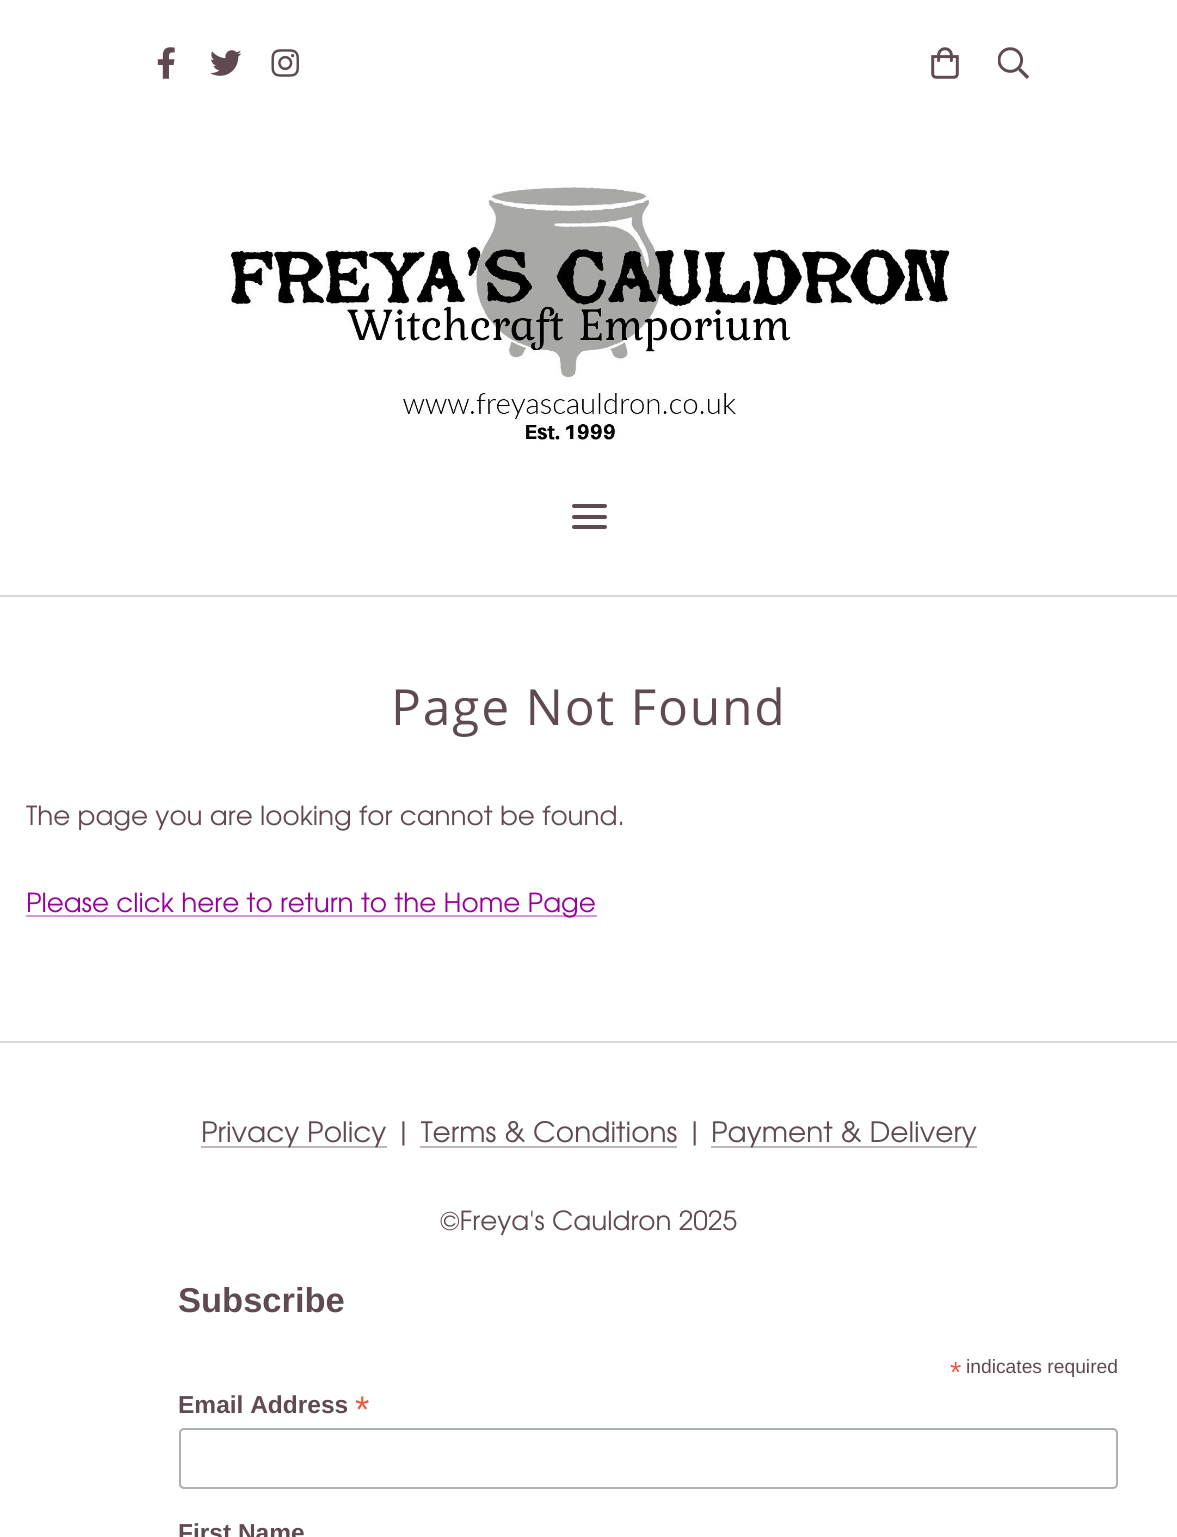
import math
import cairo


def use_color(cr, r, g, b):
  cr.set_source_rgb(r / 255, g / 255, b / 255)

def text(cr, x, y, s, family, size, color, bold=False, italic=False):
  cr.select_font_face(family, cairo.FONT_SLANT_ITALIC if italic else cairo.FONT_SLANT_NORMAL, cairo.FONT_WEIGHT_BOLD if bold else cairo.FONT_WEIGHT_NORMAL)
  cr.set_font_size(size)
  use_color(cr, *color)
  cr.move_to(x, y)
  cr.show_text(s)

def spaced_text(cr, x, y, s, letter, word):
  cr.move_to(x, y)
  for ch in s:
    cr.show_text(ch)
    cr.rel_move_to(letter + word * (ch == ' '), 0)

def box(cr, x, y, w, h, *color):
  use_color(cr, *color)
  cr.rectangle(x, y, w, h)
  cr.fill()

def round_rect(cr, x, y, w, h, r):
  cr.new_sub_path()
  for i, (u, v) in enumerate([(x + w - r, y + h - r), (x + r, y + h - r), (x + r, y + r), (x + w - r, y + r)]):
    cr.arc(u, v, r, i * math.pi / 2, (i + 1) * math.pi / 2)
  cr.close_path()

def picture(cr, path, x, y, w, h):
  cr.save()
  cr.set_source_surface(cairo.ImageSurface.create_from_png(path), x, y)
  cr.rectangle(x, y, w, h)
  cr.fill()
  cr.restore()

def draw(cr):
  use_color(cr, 255, 255, 255)
  cr.paint()
  box(cr, 0, 595, 1177, 2, 218, 218, 218)
  picture(cr, "img_01.png", 157, 47, 18, 32)
  picture(cr, "img_02.png", 210, 50, 32, 26)
  picture(cr, "img_03.png", 271, 49, 29, 28)
  picture(cr, "img_04.png", 931, 47, 28, 32)
  picture(cr, "img_05.png", 998, 47, 31, 32)
  picture(cr, "img_06.png", 230, 184, 722, 257)
  use_color(cr, 94, 74, 80)
  round_rect(cr, 572, 515, 35, 4, 2)
  cr.fill()
  round_rect(cr, 572, 504, 35, 4, 2)
  cr.fill()
  round_rect(cr, 572, 525, 35, 4, 2)
  cr.fill()
  box(cr, 26, 915, 571, 2, 214, 153, 214)
  box(cr, 0, 1041, 1177, 2, 218, 218, 218)
  box(cr, 201, 1146, 186, 2, 191, 183, 185)
  box(cr, 711, 1146, 266, 2, 191, 183, 185)
  round_rect(cr, 180, 1429, 937, 59, 4)
  use_color(cr, 171, 176, 178)
  cr.stroke()
  cr.select_font_face("Open Sans")
  cr.set_font_size(49.75)
  use_color(cr, 94, 74, 80)
  spaced_text(cr, 391, 725, "Page Not Found", 1.75, 0)
  text(cr, 26, 825, "The page you are looking for cannot be found.", "TeX Gyre Adventor", 26.25, (94, 74, 80))
  text(cr, 26, 912, "Please click here to return to the Home Page", "TeX Gyre Adventor", 26.25, (153, 0, 153))
  text(cr, 201, 1142, "Privacy Policy | Terms & Conditions |", "TeX Gyre Adventor", 28, (94, 74, 80))
  text(cr, 711, 1142, "Payment & Delivery", "TeX Gyre Adventor", 28, (94, 74, 80))
  box(cr, 420, 1146, 257, 2, 191, 183, 185)
  text(cr, 440, 1230, "©Freya's Cauldron 2025", "TeX Gyre Adventor", 26.25, (94, 74, 80))
  text(cr, 178, 1312, "Subscribe", "Liberation Sans", 34.5, (94, 74, 80), bold=True)
  text(cr, 950, 1382, "*", "Liberation Sans", 29, (232, 92, 65))
  text(cr, 966, 1373, "indicates required", "Liberation Sans", 19.25, (94, 74, 80))
  text(cr, 178, 1413, "Email Address", "Liberation Sans", 24.5, (94, 74, 80), bold=True)
  text(cr, 355, 1422, "*", "Liberation Sans", 37, (232, 92, 65))
  text(cr, 178, 1541, "First Name", "Liberation Sans", 24.5, (94, 74, 80), bold=True)


surface = cairo.ImageSurface(cairo.FORMAT_RGB24, 1177, 1537)
cr = cairo.Context(surface)
options = cairo.FontOptions()
options.set_hint_metrics(cairo.HINT_METRICS_OFF)
options.set_hint_style(cairo.HINT_STYLE_NONE)
cr.set_font_options(options)
cr.set_miter_limit(4)
draw(cr)
surface.write_to_png("out.png")
